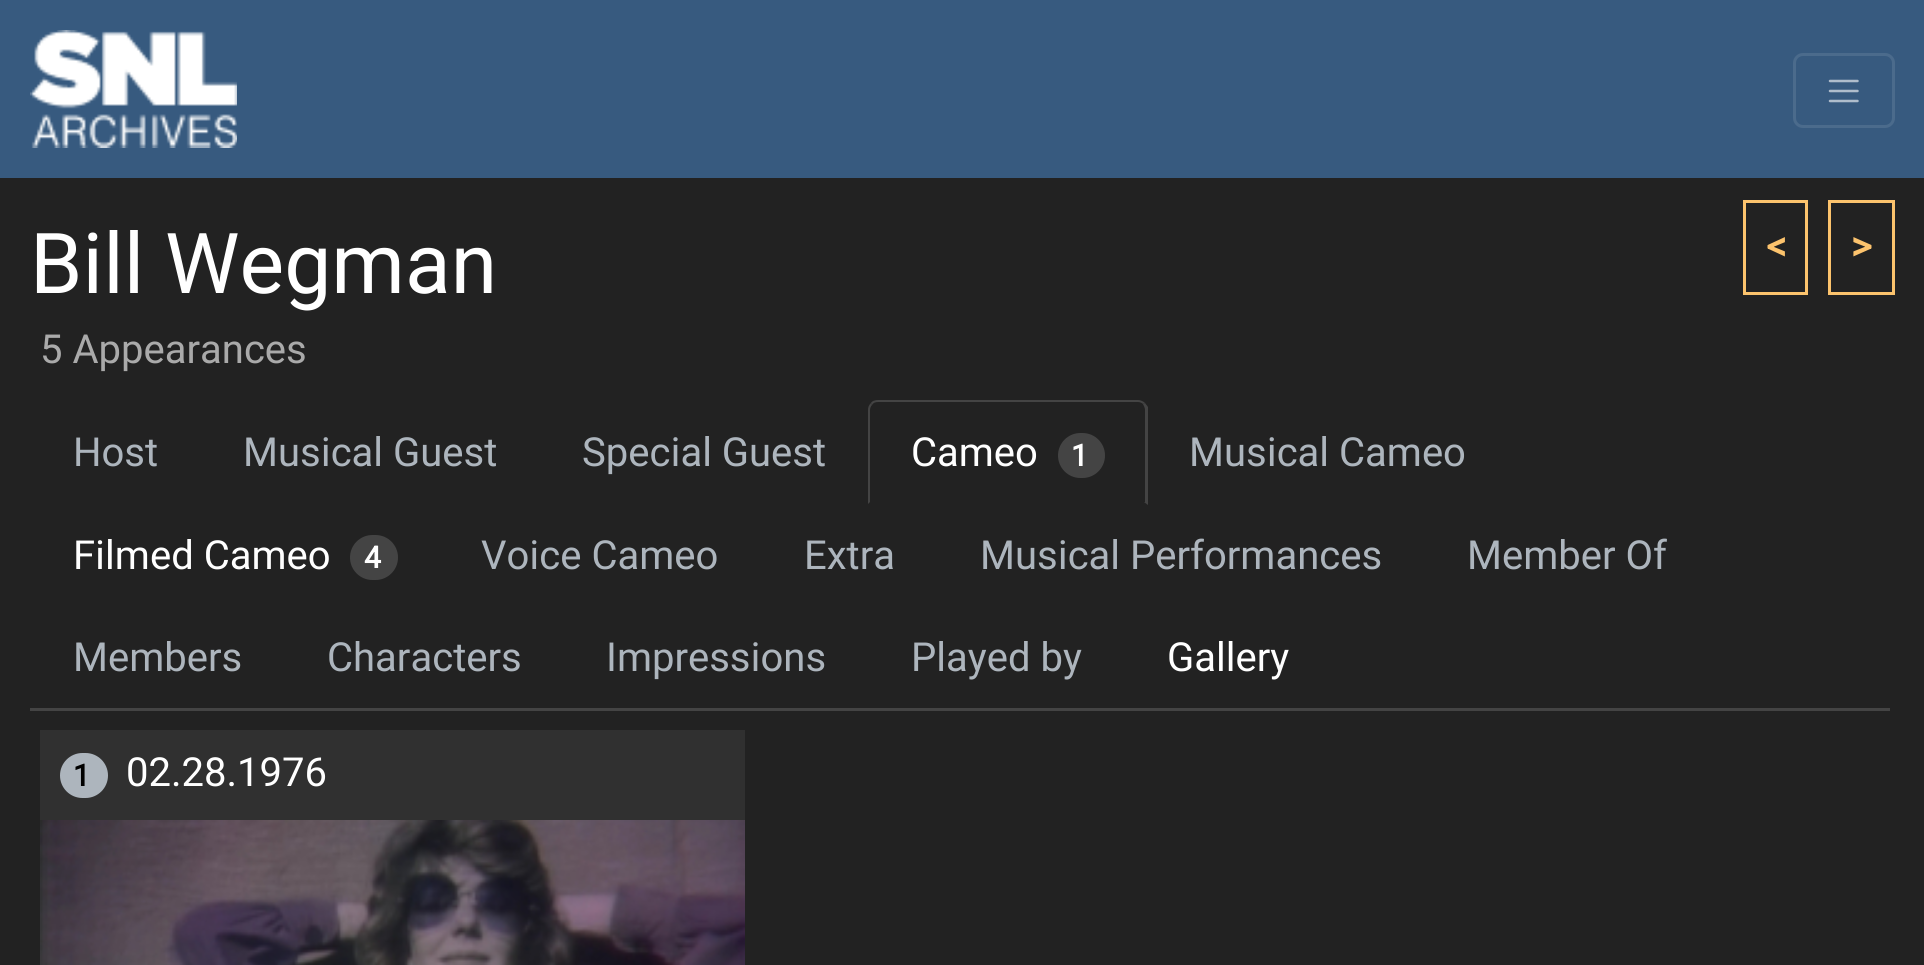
import math
import cairo


def use_color(cr, r, g, b):
  cr.set_source_rgb(r / 255, g / 255, b / 255)

def text(cr, x, y, s, family, size, color, bold=False, italic=False):
  cr.select_font_face(family, cairo.FONT_SLANT_ITALIC if italic else cairo.FONT_SLANT_NORMAL, cairo.FONT_WEIGHT_BOLD if bold else cairo.FONT_WEIGHT_NORMAL)
  cr.set_font_size(size)
  use_color(cr, *color)
  cr.move_to(x, y)
  cr.show_text(s)

def spaced_text(cr, x, y, s, letter, word):
  cr.move_to(x, y)
  for ch in s:
    cr.show_text(ch)
    cr.rel_move_to(letter + word * (ch == ' '), 0)

def box(cr, x, y, w, h, *color):
  use_color(cr, *color)
  cr.rectangle(x, y, w, h)
  cr.fill()

def round_rect(cr, x, y, w, h, r):
  cr.new_sub_path()
  for i, (u, v) in enumerate([(x + w - r, y + h - r), (x + r, y + h - r), (x + r, y + r), (x + w - r, y + r)]):
    cr.arc(u, v, r, i * math.pi / 2, (i + 1) * math.pi / 2)
  cr.close_path()

def picture(cr, path, x, y, w, h):
  cr.save()
  cr.set_source_surface(cairo.ImageSurface.create_from_png(path), x, y)
  cr.rectangle(x, y, w, h)
  cr.fill()
  cr.restore()

def draw(cr):
  use_color(cr, 34, 34, 34)
  cr.paint()
  box(cr, 0, 0, 1924, 178, 55, 90, 127)
  picture(cr, "img_01.png", 30, 30, 207, 118)
  round_rect(cr, 1794.5, 54.5, 99, 72, 8.5)
  use_color(cr, 75, 107, 140)
  cr.set_line_width(3)
  cr.stroke()
  cr.new_path()
  cr.move_to(1830, 81)
  cr.line_to(1857.5, 81)
  cr.move_to(1830, 91)
  cr.line_to(1857.5, 91)
  cr.move_to(1830, 101)
  cr.line_to(1857.5, 101)
  use_color(cr, 175, 189, 204)
  cr.set_line_width(2.5)
  cr.set_line_cap(cairo.LINE_CAP_ROUND)
  cr.stroke()
  cr.rectangle(1744.5, 201.5, 62, 92)
  use_color(cr, 252, 195, 109)
  cr.set_line_width(3)
  cr.set_line_cap(cairo.LINE_CAP_BUTT)
  cr.stroke()
  cr.rectangle(1829.5, 201.5, 64, 92)
  cr.stroke()
  box(cr, 30, 708, 1860, 3, 68, 68, 68)
  cr.new_path()
  cr.move_to(878, 400)
  cr.curve_to(875, 400, 872, 401, 871, 403)
  cr.line_to(872, 405)
  cr.curve_to(873, 403, 875, 402, 878, 402)
  cr.line_to(1138, 402)
  cr.curve_to(1140, 402, 1142, 403, 1143, 404)
  cr.line_to(1145, 403)
  cr.curve_to(1143, 401, 1140, 400, 1138, 400)
  cr.close_path()
  cr.fill()
  cr.new_path()
  cr.move_to(1148, 407)
  cr.line_to(1148, 505)
  cr.line_to(1144, 502)
  cr.line_to(1145, 502)
  cr.line_to(1145, 410)
  cr.curve_to(1145, 408, 1144, 406, 1143, 404)
  cr.line_to(1145, 403)
  cr.close_path()
  cr.fill()
  cr.new_path()
  cr.move_to(871, 403)
  cr.curve_to(869, 405, 868, 407, 868, 410)
  cr.line_to(868, 504)
  cr.line_to(870, 502)
  cr.line_to(870, 410)
  cr.curve_to(870, 408, 871, 406, 872, 405)
  cr.close_path()
  cr.fill()
  round_rect(cr, 1058, 433, 47, 45, 22.5)
  cr.fill()
  round_rect(cr, 350, 535, 48, 45, 22.5)
  cr.fill()
  box(cr, 40, 730, 705, 90, 48, 48, 48)
  use_color(cr, 173, 181, 189)
  round_rect(cr, 60, 753, 48, 45, 22.5)
  cr.fill()
  picture(cr, "img_02.png", 40, 820, 705, 145)
  text(cr, 30, 293, "Bill Wegman", "Heebo", 84, (255, 255, 255))
  text(cr, 1765, 260, "<", "Heebo", 40, (252, 195, 109), bold=True)
  text(cr, 1851, 260, ">", "Heebo", 40, (252, 195, 109), bold=True)
  text(cr, 40, 363, "5 Appearances", "Heebo", 40, (170, 170, 170))
  text(cr, 73, 466, "Host", "Heebo", 40, (173, 181, 189))
  text(cr, 243, 466, "Musical Guest", "Heebo", 40, (173, 181, 189))
  text(cr, 582, 466, "Special Guest", "Heebo", 40, (173, 181, 189))
  text(cr, 911, 466, "Cameo", "Heebo", 40, (255, 255, 255))
  cr.select_font_face("Heebo", cairo.FONT_SLANT_NORMAL, cairo.FONT_WEIGHT_BOLD)
  cr.set_font_size(30)
  spaced_text(cr, 1071, 466, "1", 2, 0)
  text(cr, 1189, 466, "Musical Cameo", "Heebo", 40, (173, 181, 189))
  text(cr, 73, 569, "Filmed Cameo", "Heebo", 40, (255, 255, 255))
  cr.select_font_face("Heebo", cairo.FONT_SLANT_NORMAL, cairo.FONT_WEIGHT_BOLD)
  cr.set_font_size(30)
  spaced_text(cr, 364, 568, "4", 2, 0)
  text(cr, 481, 569, "Voice Cameo", "Heebo", 40, (173, 181, 189))
  text(cr, 804, 569, "Extra", "Heebo", 40, (173, 181, 189))
  text(cr, 980, 569, "Musical Performances", "Heebo", 40, (173, 181, 189))
  text(cr, 1467, 569, "Member Of", "Heebo", 40, (173, 181, 189))
  text(cr, 73, 671, "Members", "Heebo", 40, (173, 181, 189))
  text(cr, 327, 671, "Characters", "Heebo", 40, (173, 181, 189))
  text(cr, 606, 671, "Impressions", "Heebo", 40, (173, 181, 189))
  text(cr, 911, 671, "Played by", "Heebo", 40, (173, 181, 189))
  text(cr, 1167, 671, "Gallery", "Heebo", 40, (255, 255, 255))
  cr.select_font_face("Heebo", cairo.FONT_SLANT_NORMAL, cairo.FONT_WEIGHT_BOLD)
  cr.set_font_size(30)
  use_color(cr, 0, 0, 0)
  spaced_text(cr, 73, 786, "1", 2, 0)
  text(cr, 126, 786, "02.28.1976", "Heebo", 40, (255, 255, 255))


surface = cairo.ImageSurface(cairo.FORMAT_RGB24, 1924, 965)
cr = cairo.Context(surface)
options = cairo.FontOptions()
options.set_hint_metrics(cairo.HINT_METRICS_OFF)
options.set_hint_style(cairo.HINT_STYLE_NONE)
cr.set_font_options(options)
cr.set_miter_limit(4)
draw(cr)
surface.write_to_png("out.png")
